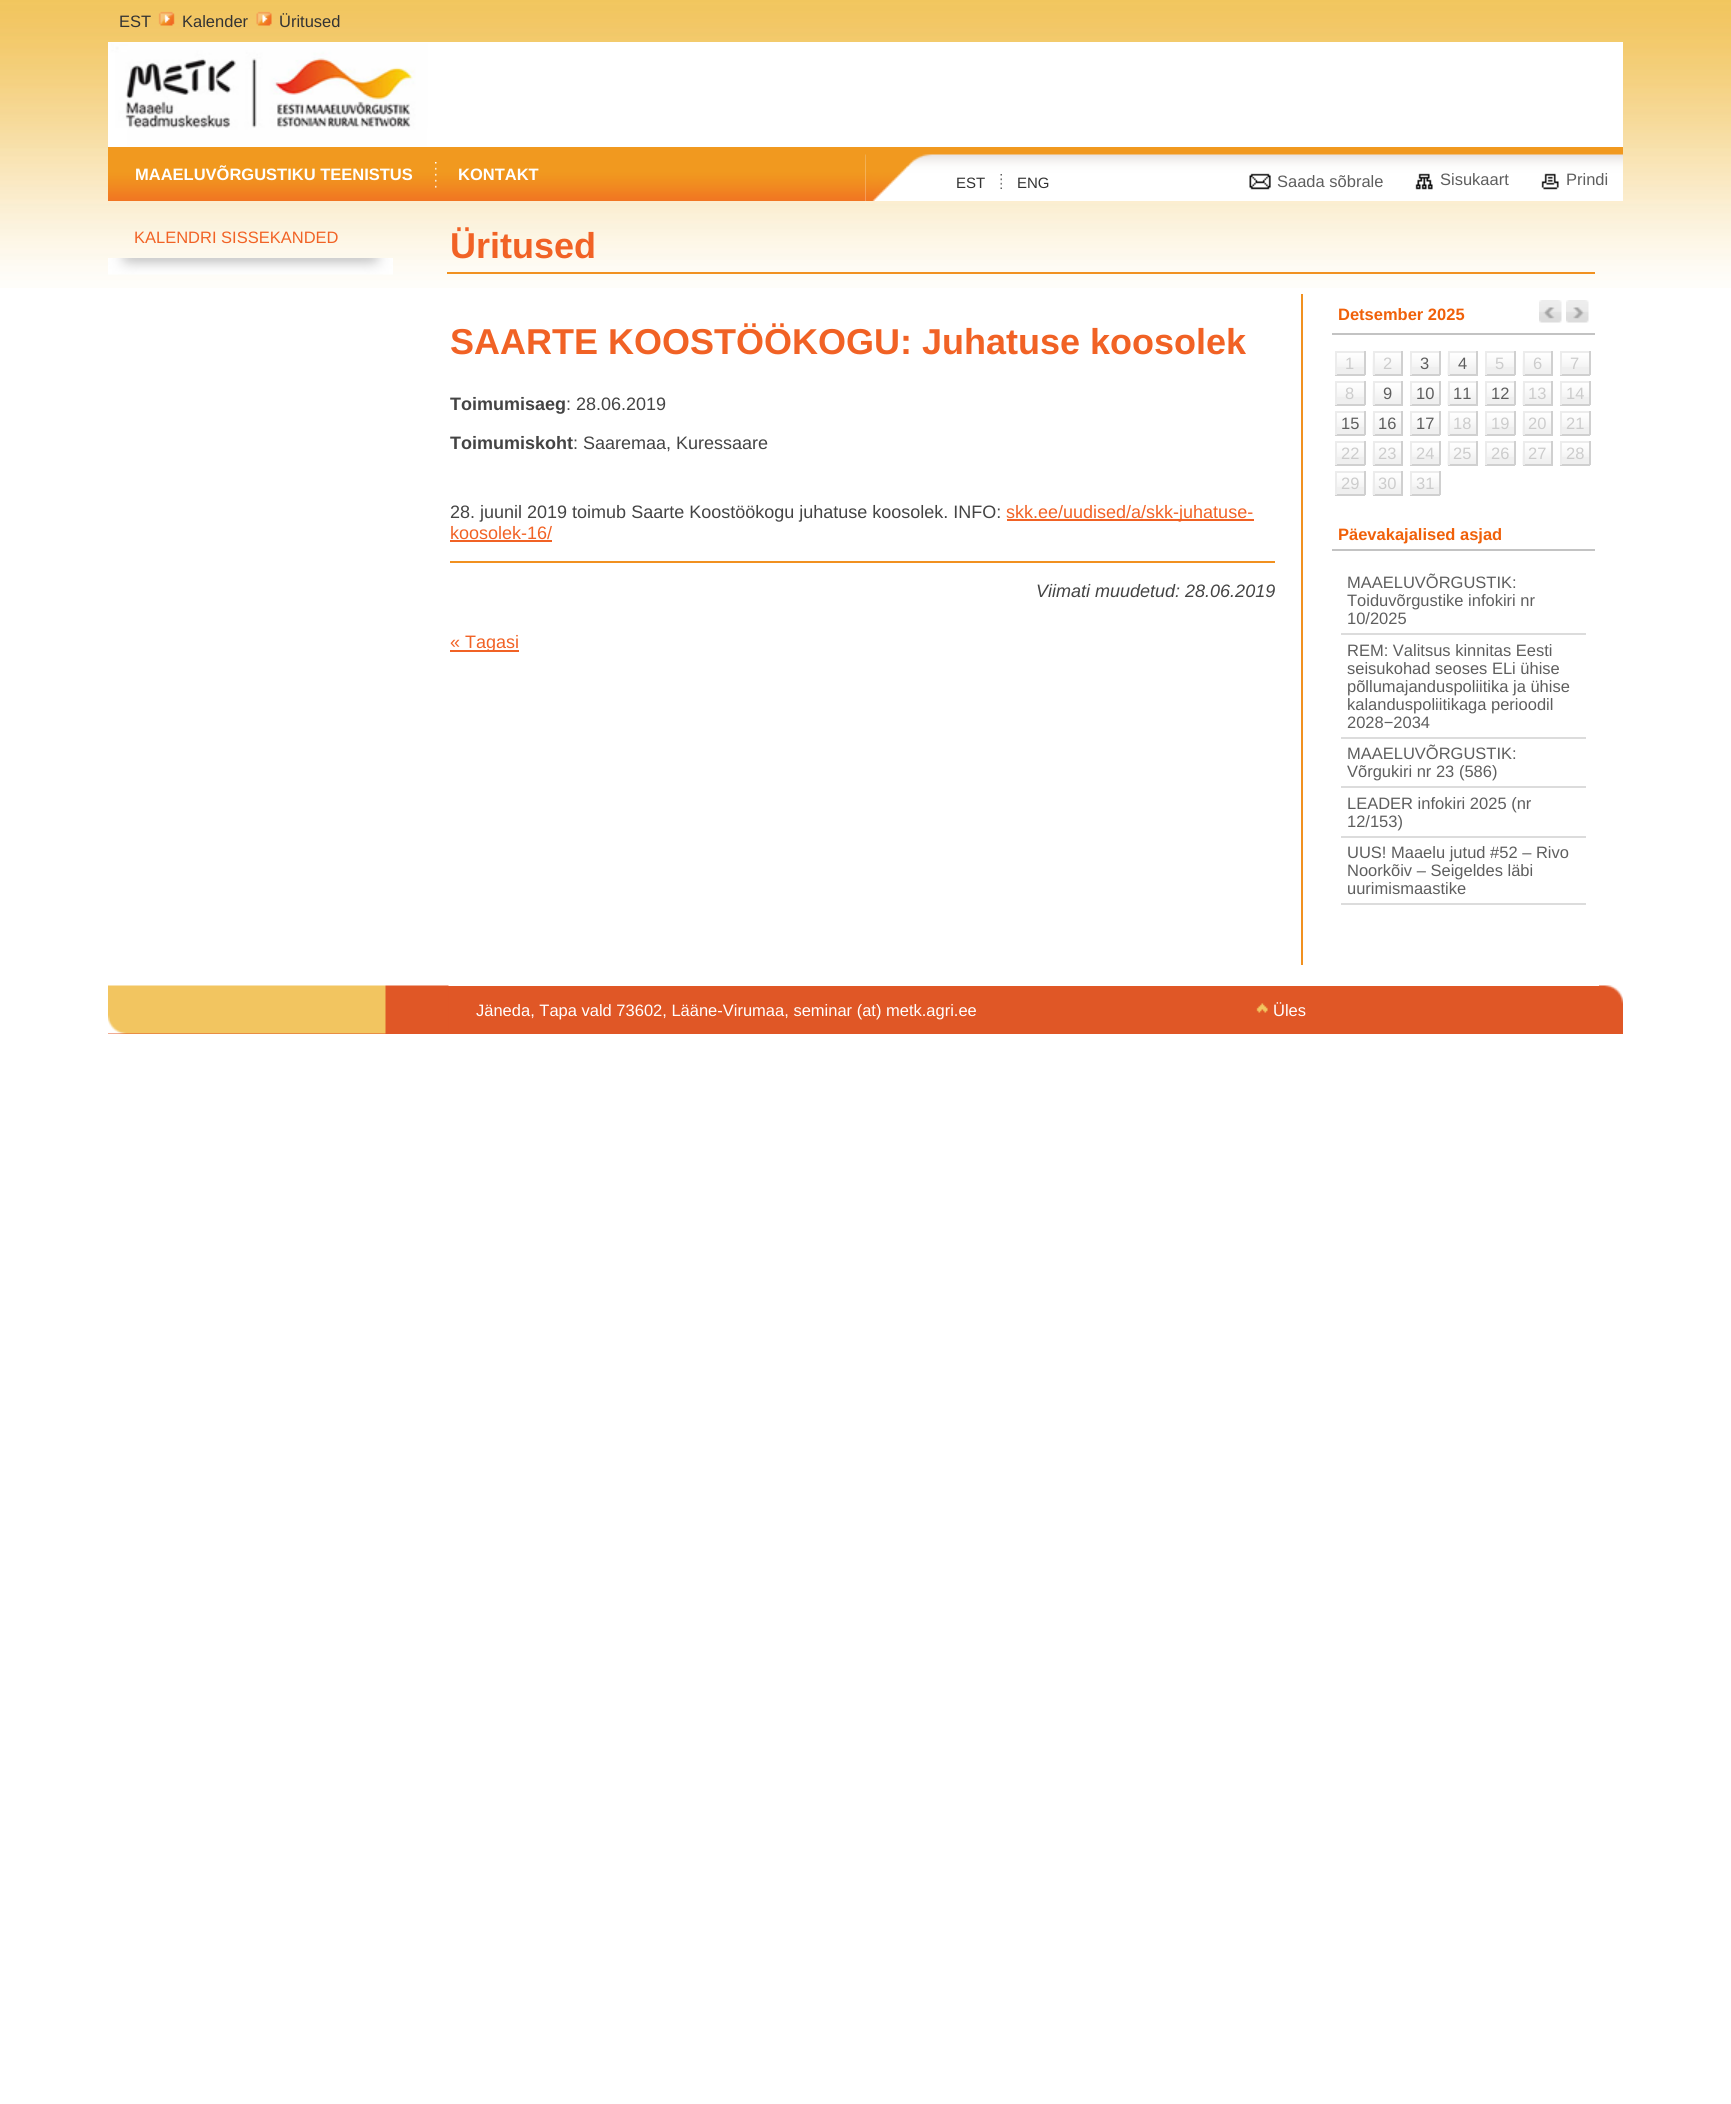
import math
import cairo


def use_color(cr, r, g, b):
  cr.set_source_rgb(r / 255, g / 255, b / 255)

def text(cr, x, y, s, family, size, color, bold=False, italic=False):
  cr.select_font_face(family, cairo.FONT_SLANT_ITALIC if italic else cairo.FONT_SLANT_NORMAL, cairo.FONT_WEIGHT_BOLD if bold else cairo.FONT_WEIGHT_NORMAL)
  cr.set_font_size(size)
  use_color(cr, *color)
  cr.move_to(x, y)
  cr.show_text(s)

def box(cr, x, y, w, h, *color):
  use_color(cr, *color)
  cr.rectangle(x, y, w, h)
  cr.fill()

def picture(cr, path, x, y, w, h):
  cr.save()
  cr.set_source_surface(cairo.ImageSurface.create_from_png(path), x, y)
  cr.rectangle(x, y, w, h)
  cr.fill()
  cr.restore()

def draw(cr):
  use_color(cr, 255, 255, 255)
  cr.paint()
  picture(cr, "img_01.png", 0, 0, 1731, 288)
  picture(cr, "img_02.png", 158, 11, 17, 15)
  picture(cr, "img_03.png", 256, 11, 16, 15)
  picture(cr, "img_04.png", 108, 42, 1515, 105)
  picture(cr, "img_05.png", 108, 147, 1515, 54)
  picture(cr, "img_06.png", 108, 154, 758, 47)
  picture(cr, "img_07.png", 435, 162, 2, 26)
  picture(cr, "img_08.png", 865, 154, 67, 47)
  picture(cr, "img_09.png", 1000, 174, 2, 15)
  picture(cr, "img_10.png", 1249, 173, 22, 17)
  picture(cr, "img_11.png", 1415, 173, 18, 17)
  picture(cr, "img_12.png", 1541, 173, 18, 17)
  picture(cr, "img_13.png", 108, 258, 285, 17)
  box(cr, 447, 272, 1148, 2, 241, 145, 32)
  box(cr, 1007, 519, 247, 2, 241, 98, 37)
  box(cr, 450, 540, 102, 2, 241, 98, 37)
  box(cr, 450, 561, 825, 2, 241, 145, 32)
  box(cr, 450, 650, 69, 2, 241, 98, 37)
  box(cr, 1301, 294, 2, 671, 241, 145, 32)
  box(cr, 1332, 333, 263, 2, 195, 195, 195)
  picture(cr, "img_14.png", 1539, 300, 23, 23)
  picture(cr, "img_15.png", 1566, 300, 23, 23)
  box(cr, 1337, 367, 27, 7, 239, 239, 239)
  picture(cr, "img_16.png", 1337, 353, 27, 14)
  box(cr, 1335, 351, 30, 2, 236, 236, 236)
  box(cr, 1364, 351, 2, 24, 208, 208, 208)
  box(cr, 1335, 374, 30, 2, 208, 208, 208)
  box(cr, 1335, 351, 2, 24, 236, 236, 236)
  picture(cr, "img_17.png", 1372, 352, 29, 23)
  box(cr, 1373, 351, 30, 2, 236, 236, 236)
  box(cr, 1401, 351, 2, 24, 208, 208, 208)
  box(cr, 1373, 374, 30, 2, 208, 208, 208)
  box(cr, 1373, 351, 2, 24, 236, 236, 236)
  box(cr, 1412, 367, 27, 7, 239, 239, 239)
  picture(cr, "img_16.png", 1412, 353, 27, 14)
  box(cr, 1410, 351, 30, 2, 236, 236, 236)
  box(cr, 1439, 351, 2, 24, 208, 208, 208)
  box(cr, 1410, 374, 30, 2, 208, 208, 208)
  box(cr, 1410, 351, 2, 24, 236, 236, 236)
  picture(cr, "img_17.png", 1447, 352, 29, 23)
  box(cr, 1448, 351, 30, 2, 236, 236, 236)
  box(cr, 1476, 351, 2, 24, 208, 208, 208)
  box(cr, 1448, 374, 30, 2, 208, 208, 208)
  box(cr, 1448, 351, 2, 24, 236, 236, 236)
  box(cr, 1487, 367, 27, 7, 239, 239, 239)
  picture(cr, "img_16.png", 1487, 353, 27, 14)
  box(cr, 1485, 351, 30, 2, 236, 236, 236)
  box(cr, 1514, 351, 2, 24, 208, 208, 208)
  box(cr, 1485, 374, 30, 2, 208, 208, 208)
  box(cr, 1485, 351, 2, 24, 236, 236, 236)
  picture(cr, "img_17.png", 1522, 352, 29, 23)
  box(cr, 1523, 351, 30, 2, 236, 236, 236)
  box(cr, 1551, 351, 2, 24, 208, 208, 208)
  box(cr, 1523, 374, 30, 2, 208, 208, 208)
  box(cr, 1523, 351, 2, 24, 236, 236, 236)
  box(cr, 1562, 367, 27, 7, 239, 239, 239)
  picture(cr, "img_16.png", 1562, 353, 27, 14)
  box(cr, 1560, 351, 30, 2, 236, 236, 236)
  box(cr, 1589, 351, 2, 24, 208, 208, 208)
  box(cr, 1560, 374, 30, 2, 208, 208, 208)
  box(cr, 1560, 351, 2, 24, 236, 236, 236)
  box(cr, 1337, 397, 27, 7, 239, 239, 239)
  picture(cr, "img_16.png", 1337, 383, 27, 14)
  box(cr, 1335, 381, 30, 2, 236, 236, 236)
  box(cr, 1364, 381, 2, 24, 208, 208, 208)
  box(cr, 1335, 404, 30, 2, 208, 208, 208)
  box(cr, 1335, 381, 2, 24, 236, 236, 236)
  picture(cr, "img_17.png", 1372, 382, 29, 23)
  box(cr, 1373, 381, 30, 2, 236, 236, 236)
  box(cr, 1401, 381, 2, 24, 208, 208, 208)
  box(cr, 1373, 404, 30, 2, 208, 208, 208)
  box(cr, 1373, 381, 2, 24, 236, 236, 236)
  box(cr, 1412, 397, 27, 7, 239, 239, 239)
  picture(cr, "img_16.png", 1412, 383, 27, 14)
  box(cr, 1410, 381, 30, 2, 236, 236, 236)
  box(cr, 1439, 381, 2, 24, 208, 208, 208)
  box(cr, 1410, 404, 30, 2, 208, 208, 208)
  box(cr, 1410, 381, 2, 24, 236, 236, 236)
  picture(cr, "img_17.png", 1447, 382, 29, 23)
  box(cr, 1448, 381, 30, 2, 236, 236, 236)
  box(cr, 1476, 381, 2, 24, 208, 208, 208)
  box(cr, 1448, 404, 30, 2, 208, 208, 208)
  box(cr, 1448, 381, 2, 24, 236, 236, 236)
  box(cr, 1487, 397, 27, 7, 239, 239, 239)
  picture(cr, "img_16.png", 1487, 383, 27, 14)
  box(cr, 1485, 381, 30, 2, 236, 236, 236)
  box(cr, 1514, 381, 2, 24, 208, 208, 208)
  box(cr, 1485, 404, 30, 2, 208, 208, 208)
  box(cr, 1485, 381, 2, 24, 236, 236, 236)
  picture(cr, "img_17.png", 1522, 382, 29, 23)
  box(cr, 1523, 381, 30, 2, 236, 236, 236)
  box(cr, 1551, 381, 2, 24, 208, 208, 208)
  box(cr, 1523, 404, 30, 2, 208, 208, 208)
  box(cr, 1523, 381, 2, 24, 236, 236, 236)
  box(cr, 1562, 397, 27, 7, 239, 239, 239)
  picture(cr, "img_16.png", 1562, 383, 27, 14)
  box(cr, 1560, 381, 30, 2, 236, 236, 236)
  box(cr, 1589, 381, 2, 24, 208, 208, 208)
  box(cr, 1560, 404, 30, 2, 208, 208, 208)
  box(cr, 1560, 381, 2, 24, 236, 236, 236)
  box(cr, 1337, 427, 27, 7, 239, 239, 239)
  picture(cr, "img_16.png", 1337, 413, 27, 14)
  box(cr, 1335, 411, 30, 2, 236, 236, 236)
  box(cr, 1364, 411, 2, 24, 208, 208, 208)
  box(cr, 1335, 434, 30, 2, 208, 208, 208)
  box(cr, 1335, 411, 2, 24, 236, 236, 236)
  picture(cr, "img_17.png", 1372, 412, 29, 23)
  box(cr, 1373, 411, 30, 2, 236, 236, 236)
  box(cr, 1401, 411, 2, 24, 208, 208, 208)
  box(cr, 1373, 434, 30, 2, 208, 208, 208)
  box(cr, 1373, 411, 2, 24, 236, 236, 236)
  box(cr, 1412, 427, 27, 7, 239, 239, 239)
  picture(cr, "img_16.png", 1412, 413, 27, 14)
  box(cr, 1410, 411, 30, 2, 236, 236, 236)
  box(cr, 1439, 411, 2, 24, 208, 208, 208)
  box(cr, 1410, 434, 30, 2, 208, 208, 208)
  box(cr, 1410, 411, 2, 24, 236, 236, 236)
  picture(cr, "img_17.png", 1447, 412, 29, 23)
  box(cr, 1448, 411, 30, 2, 236, 236, 236)
  box(cr, 1476, 411, 2, 24, 208, 208, 208)
  box(cr, 1448, 434, 30, 2, 208, 208, 208)
  box(cr, 1448, 411, 2, 24, 236, 236, 236)
  box(cr, 1487, 427, 27, 7, 239, 239, 239)
  picture(cr, "img_16.png", 1487, 413, 27, 14)
  box(cr, 1485, 411, 30, 2, 236, 236, 236)
  box(cr, 1514, 411, 2, 24, 208, 208, 208)
  box(cr, 1485, 434, 30, 2, 208, 208, 208)
  box(cr, 1485, 411, 2, 24, 236, 236, 236)
  picture(cr, "img_17.png", 1522, 412, 29, 23)
  box(cr, 1523, 411, 30, 2, 236, 236, 236)
  box(cr, 1551, 411, 2, 24, 208, 208, 208)
  box(cr, 1523, 434, 30, 2, 208, 208, 208)
  box(cr, 1523, 411, 2, 24, 236, 236, 236)
  box(cr, 1562, 427, 27, 7, 239, 239, 239)
  picture(cr, "img_16.png", 1562, 413, 27, 14)
  box(cr, 1560, 411, 30, 2, 236, 236, 236)
  box(cr, 1589, 411, 2, 24, 208, 208, 208)
  box(cr, 1560, 434, 30, 2, 208, 208, 208)
  box(cr, 1560, 411, 2, 24, 236, 236, 236)
  box(cr, 1337, 457, 27, 7, 239, 239, 239)
  picture(cr, "img_16.png", 1337, 443, 27, 14)
  box(cr, 1335, 441, 30, 2, 236, 236, 236)
  box(cr, 1364, 441, 2, 24, 208, 208, 208)
  box(cr, 1335, 464, 30, 2, 208, 208, 208)
  box(cr, 1335, 441, 2, 24, 236, 236, 236)
  picture(cr, "img_17.png", 1372, 442, 29, 23)
  box(cr, 1373, 441, 30, 2, 236, 236, 236)
  box(cr, 1401, 441, 2, 24, 208, 208, 208)
  box(cr, 1373, 464, 30, 2, 208, 208, 208)
  box(cr, 1373, 441, 2, 24, 236, 236, 236)
  box(cr, 1412, 457, 27, 7, 239, 239, 239)
  picture(cr, "img_16.png", 1412, 443, 27, 14)
  box(cr, 1410, 441, 30, 2, 236, 236, 236)
  box(cr, 1439, 441, 2, 24, 208, 208, 208)
  box(cr, 1410, 464, 30, 2, 208, 208, 208)
  box(cr, 1410, 441, 2, 24, 236, 236, 236)
  picture(cr, "img_17.png", 1447, 442, 29, 23)
  box(cr, 1448, 441, 30, 2, 236, 236, 236)
  box(cr, 1476, 441, 2, 24, 208, 208, 208)
  box(cr, 1448, 464, 30, 2, 208, 208, 208)
  box(cr, 1448, 441, 2, 24, 236, 236, 236)
  box(cr, 1487, 457, 27, 7, 239, 239, 239)
  picture(cr, "img_16.png", 1487, 443, 27, 14)
  box(cr, 1485, 441, 30, 2, 236, 236, 236)
  box(cr, 1514, 441, 2, 24, 208, 208, 208)
  box(cr, 1485, 464, 30, 2, 208, 208, 208)
  box(cr, 1485, 441, 2, 24, 236, 236, 236)
  picture(cr, "img_17.png", 1522, 442, 29, 23)
  box(cr, 1523, 441, 30, 2, 236, 236, 236)
  box(cr, 1551, 441, 2, 24, 208, 208, 208)
  box(cr, 1523, 464, 30, 2, 208, 208, 208)
  box(cr, 1523, 441, 2, 24, 236, 236, 236)
  box(cr, 1562, 457, 27, 7, 239, 239, 239)
  picture(cr, "img_16.png", 1562, 443, 27, 14)
  box(cr, 1560, 441, 30, 2, 236, 236, 236)
  box(cr, 1589, 441, 2, 24, 208, 208, 208)
  box(cr, 1560, 464, 30, 2, 208, 208, 208)
  box(cr, 1560, 441, 2, 24, 236, 236, 236)
  box(cr, 1337, 487, 27, 7, 239, 239, 239)
  picture(cr, "img_16.png", 1337, 473, 27, 14)
  box(cr, 1335, 471, 30, 2, 236, 236, 236)
  box(cr, 1364, 471, 2, 24, 208, 208, 208)
  box(cr, 1335, 494, 30, 2, 208, 208, 208)
  box(cr, 1335, 471, 2, 24, 236, 236, 236)
  picture(cr, "img_17.png", 1372, 472, 29, 23)
  box(cr, 1373, 471, 30, 2, 236, 236, 236)
  box(cr, 1401, 471, 2, 24, 208, 208, 208)
  box(cr, 1373, 494, 30, 2, 208, 208, 208)
  box(cr, 1373, 471, 2, 24, 236, 236, 236)
  box(cr, 1412, 487, 27, 7, 239, 239, 239)
  picture(cr, "img_16.png", 1412, 473, 27, 14)
  box(cr, 1410, 471, 30, 2, 236, 236, 236)
  box(cr, 1439, 471, 2, 24, 208, 208, 208)
  box(cr, 1410, 494, 30, 2, 208, 208, 208)
  box(cr, 1410, 471, 2, 24, 236, 236, 236)
  box(cr, 1332, 549, 263, 2, 195, 195, 195)
  box(cr, 1341, 633, 245, 2, 220, 220, 220)
  box(cr, 1341, 737, 245, 2, 220, 220, 220)
  box(cr, 1341, 786, 245, 2, 220, 220, 220)
  box(cr, 1341, 836, 245, 2, 220, 220, 220)
  box(cr, 1341, 903, 245, 2, 220, 220, 220)
  box(cr, 108, 986, 1515, 48, 224, 87, 38)
  picture(cr, "img_18.png", 108, 985, 341, 49)
  picture(cr, "img_19.png", 1599, 985, 24, 19)
  picture(cr, "img_20.png", 1256, 1003, 12, 10)
  text(cr, 119, 27, "EST", "Liberation Sans", 16.5, (51, 51, 51))
  text(cr, 182, 27, "Kalender", "Liberation Sans", 16.5, (51, 51, 51))
  text(cr, 279, 27, "Üritused", "Liberation Sans", 16.5, (51, 51, 51))
  text(cr, 135, 180, "MAAELUVÕRGUSTIKU TEENISTUS", "Liberation Sans", 16.5, (255, 255, 255), bold=True)
  text(cr, 458, 180, "KONTAKT", "Liberation Sans", 16.5, (255, 255, 255), bold=True)
  text(cr, 956, 188, "EST", "Liberation Sans", 15, (51, 51, 51))
  text(cr, 1017, 188, "ENG", "Liberation Sans", 15, (51, 51, 51))
  text(cr, 1277, 187, "Saada sõbrale", "Liberation Sans", 16.5, (94, 94, 94))
  text(cr, 1440, 185, "Sisukaart", "Liberation Sans", 16.5, (94, 94, 94))
  text(cr, 1566, 185, "Prindi", "Liberation Sans", 16.5, (94, 94, 94))
  text(cr, 134, 243, "KALENDRI SISSEKANDED", "Liberation Sans", 16.5, (241, 98, 37))
  text(cr, 450, 258, "Üritused", "Liberation Sans", 36, (241, 98, 37), bold=True)
  text(cr, 450, 354, "SAARTE KOOSTÖÖKOGU: Juhatuse koosolek", "Liberation Sans", 36, (241, 98, 37), bold=True)
  text(cr, 450, 410, "Toimumisaeg", "Liberation Sans", 18, (68, 68, 68), bold=True)
  text(cr, 566, 410, ": 28.06.2019", "Liberation Sans", 18, (68, 68, 68))
  text(cr, 450, 449, "Toimumiskoht", "Liberation Sans", 18, (68, 68, 68), bold=True)
  text(cr, 573, 449, ": Saaremaa, Kuressaare", "Liberation Sans", 18, (68, 68, 68))
  text(cr, 450, 518, "28. juunil 2019 toimub Saarte Koostöökogu juhatuse koosolek. INFO:", "Liberation Sans", 18, (68, 68, 68))
  text(cr, 1006, 518, "skk.ee/uudised/a/skk-juhatuse-", "Liberation Sans", 18, (241, 98, 37))
  text(cr, 450, 539, "koosolek-16/", "Liberation Sans", 18, (241, 98, 37))
  text(cr, 1036, 597, "Viimati muudetud: 28.06.2019", "Liberation Sans", 18, (68, 68, 68), italic=True)
  text(cr, 450, 648, "« Tagasi", "Liberation Sans", 18, (241, 98, 37))
  text(cr, 1338, 320, "Detsember 2025", "Liberation Sans", 16.5, (240, 96, 9), bold=True)
  text(cr, 1345, 369, "1", "Liberation Sans", 16.5, (204, 204, 204))
  text(cr, 1383, 369, "2", "Liberation Sans", 16.5, (204, 204, 204))
  text(cr, 1420, 369, "3", "Liberation Sans", 16.5, (94, 94, 94))
  text(cr, 1458, 369, "4", "Liberation Sans", 16.5, (94, 94, 94))
  text(cr, 1495, 369, "5", "Liberation Sans", 16.5, (204, 204, 204))
  text(cr, 1533, 369, "6", "Liberation Sans", 16.5, (204, 204, 204))
  text(cr, 1570, 369, "7", "Liberation Sans", 16.5, (204, 204, 204))
  text(cr, 1345, 399, "8", "Liberation Sans", 16.5, (204, 204, 204))
  text(cr, 1383, 399, "9", "Liberation Sans", 16.5, (94, 94, 94))
  text(cr, 1416, 399, "10", "Liberation Sans", 16.5, (94, 94, 94))
  text(cr, 1453, 399, "11", "Liberation Sans", 16.5, (94, 94, 94))
  text(cr, 1491, 399, "12", "Liberation Sans", 16.5, (94, 94, 94))
  text(cr, 1528, 399, "13", "Liberation Sans", 16.5, (204, 204, 204))
  text(cr, 1566, 399, "14", "Liberation Sans", 16.5, (204, 204, 204))
  text(cr, 1341, 429, "15", "Liberation Sans", 16.5, (94, 94, 94))
  text(cr, 1378, 429, "16", "Liberation Sans", 16.5, (94, 94, 94))
  text(cr, 1416, 429, "17", "Liberation Sans", 16.5, (94, 94, 94))
  text(cr, 1453, 429, "18", "Liberation Sans", 16.5, (204, 204, 204))
  text(cr, 1491, 429, "19", "Liberation Sans", 16.5, (204, 204, 204))
  text(cr, 1528, 429, "20", "Liberation Sans", 16.5, (204, 204, 204))
  text(cr, 1566, 429, "21", "Liberation Sans", 16.5, (204, 204, 204))
  text(cr, 1341, 459, "22", "Liberation Sans", 16.5, (204, 204, 204))
  text(cr, 1378, 459, "23", "Liberation Sans", 16.5, (204, 204, 204))
  text(cr, 1416, 459, "24", "Liberation Sans", 16.5, (204, 204, 204))
  text(cr, 1453, 459, "25", "Liberation Sans", 16.5, (204, 204, 204))
  text(cr, 1491, 459, "26", "Liberation Sans", 16.5, (204, 204, 204))
  text(cr, 1528, 459, "27", "Liberation Sans", 16.5, (204, 204, 204))
  text(cr, 1566, 459, "28", "Liberation Sans", 16.5, (204, 204, 204))
  text(cr, 1341, 489, "29", "Liberation Sans", 16.5, (204, 204, 204))
  text(cr, 1378, 489, "30", "Liberation Sans", 16.5, (204, 204, 204))
  text(cr, 1416, 489, "31", "Liberation Sans", 16.5, (204, 204, 204))
  text(cr, 1338, 540, "Päevakajalised asjad", "Liberation Sans", 16.5, (240, 96, 9), bold=True)
  text(cr, 1347, 588, "MAAELUVÕRGUSTIK:", "Liberation Sans", 16.5, (94, 94, 94))
  text(cr, 1347, 606, "Toiduvõrgustike infokiri nr", "Liberation Sans", 16.5, (94, 94, 94))
  text(cr, 1347, 624, "10/2025", "Liberation Sans", 16.5, (94, 94, 94))
  text(cr, 1347, 656, "REM: Valitsus kinnitas Eesti", "Liberation Sans", 16.5, (94, 94, 94))
  text(cr, 1347, 674, "seisukohad seoses ELi ühise", "Liberation Sans", 16.5, (94, 94, 94))
  text(cr, 1347, 692, "põllumajanduspoliitika ja ühise", "Liberation Sans", 16.5, (94, 94, 94))
  text(cr, 1347, 710, "kalanduspoliitikaga perioodil", "Liberation Sans", 16.5, (94, 94, 94))
  text(cr, 1347, 728, "2028−2034", "Liberation Sans", 16.5, (94, 94, 94))
  text(cr, 1347, 759, "MAAELUVÕRGUSTIK:", "Liberation Sans", 16.5, (94, 94, 94))
  text(cr, 1347, 777, "Võrgukiri nr 23 (586)", "Liberation Sans", 16.5, (94, 94, 94))
  text(cr, 1347, 809, "LEADER infokiri 2025 (nr", "Liberation Sans", 16.5, (94, 94, 94))
  text(cr, 1347, 827, "12/153)", "Liberation Sans", 16.5, (94, 94, 94))
  text(cr, 1347, 858, "UUS! Maaelu jutud #52 – Rivo", "Liberation Sans", 16.5, (94, 94, 94))
  text(cr, 1347, 876, "Noorkõiv – Seigeldes läbi", "Liberation Sans", 16.5, (94, 94, 94))
  text(cr, 1347, 894, "uurimismaastike", "Liberation Sans", 16.5, (94, 94, 94))
  text(cr, 476, 1016, "Jäneda, Tapa vald 73602, Lääne-Virumaa, seminar (at) metk.agri.ee", "Liberation Sans", 16.5, (255, 255, 255))
  text(cr, 1273, 1016, "Üles", "Liberation Sans", 16.5, (255, 255, 255))


surface = cairo.ImageSurface(cairo.FORMAT_RGB24, 1731, 2104)
cr = cairo.Context(surface)
options = cairo.FontOptions()
options.set_hint_metrics(cairo.HINT_METRICS_OFF)
options.set_hint_style(cairo.HINT_STYLE_NONE)
cr.set_font_options(options)
cr.set_miter_limit(4)
draw(cr)
surface.write_to_png("out.png")
